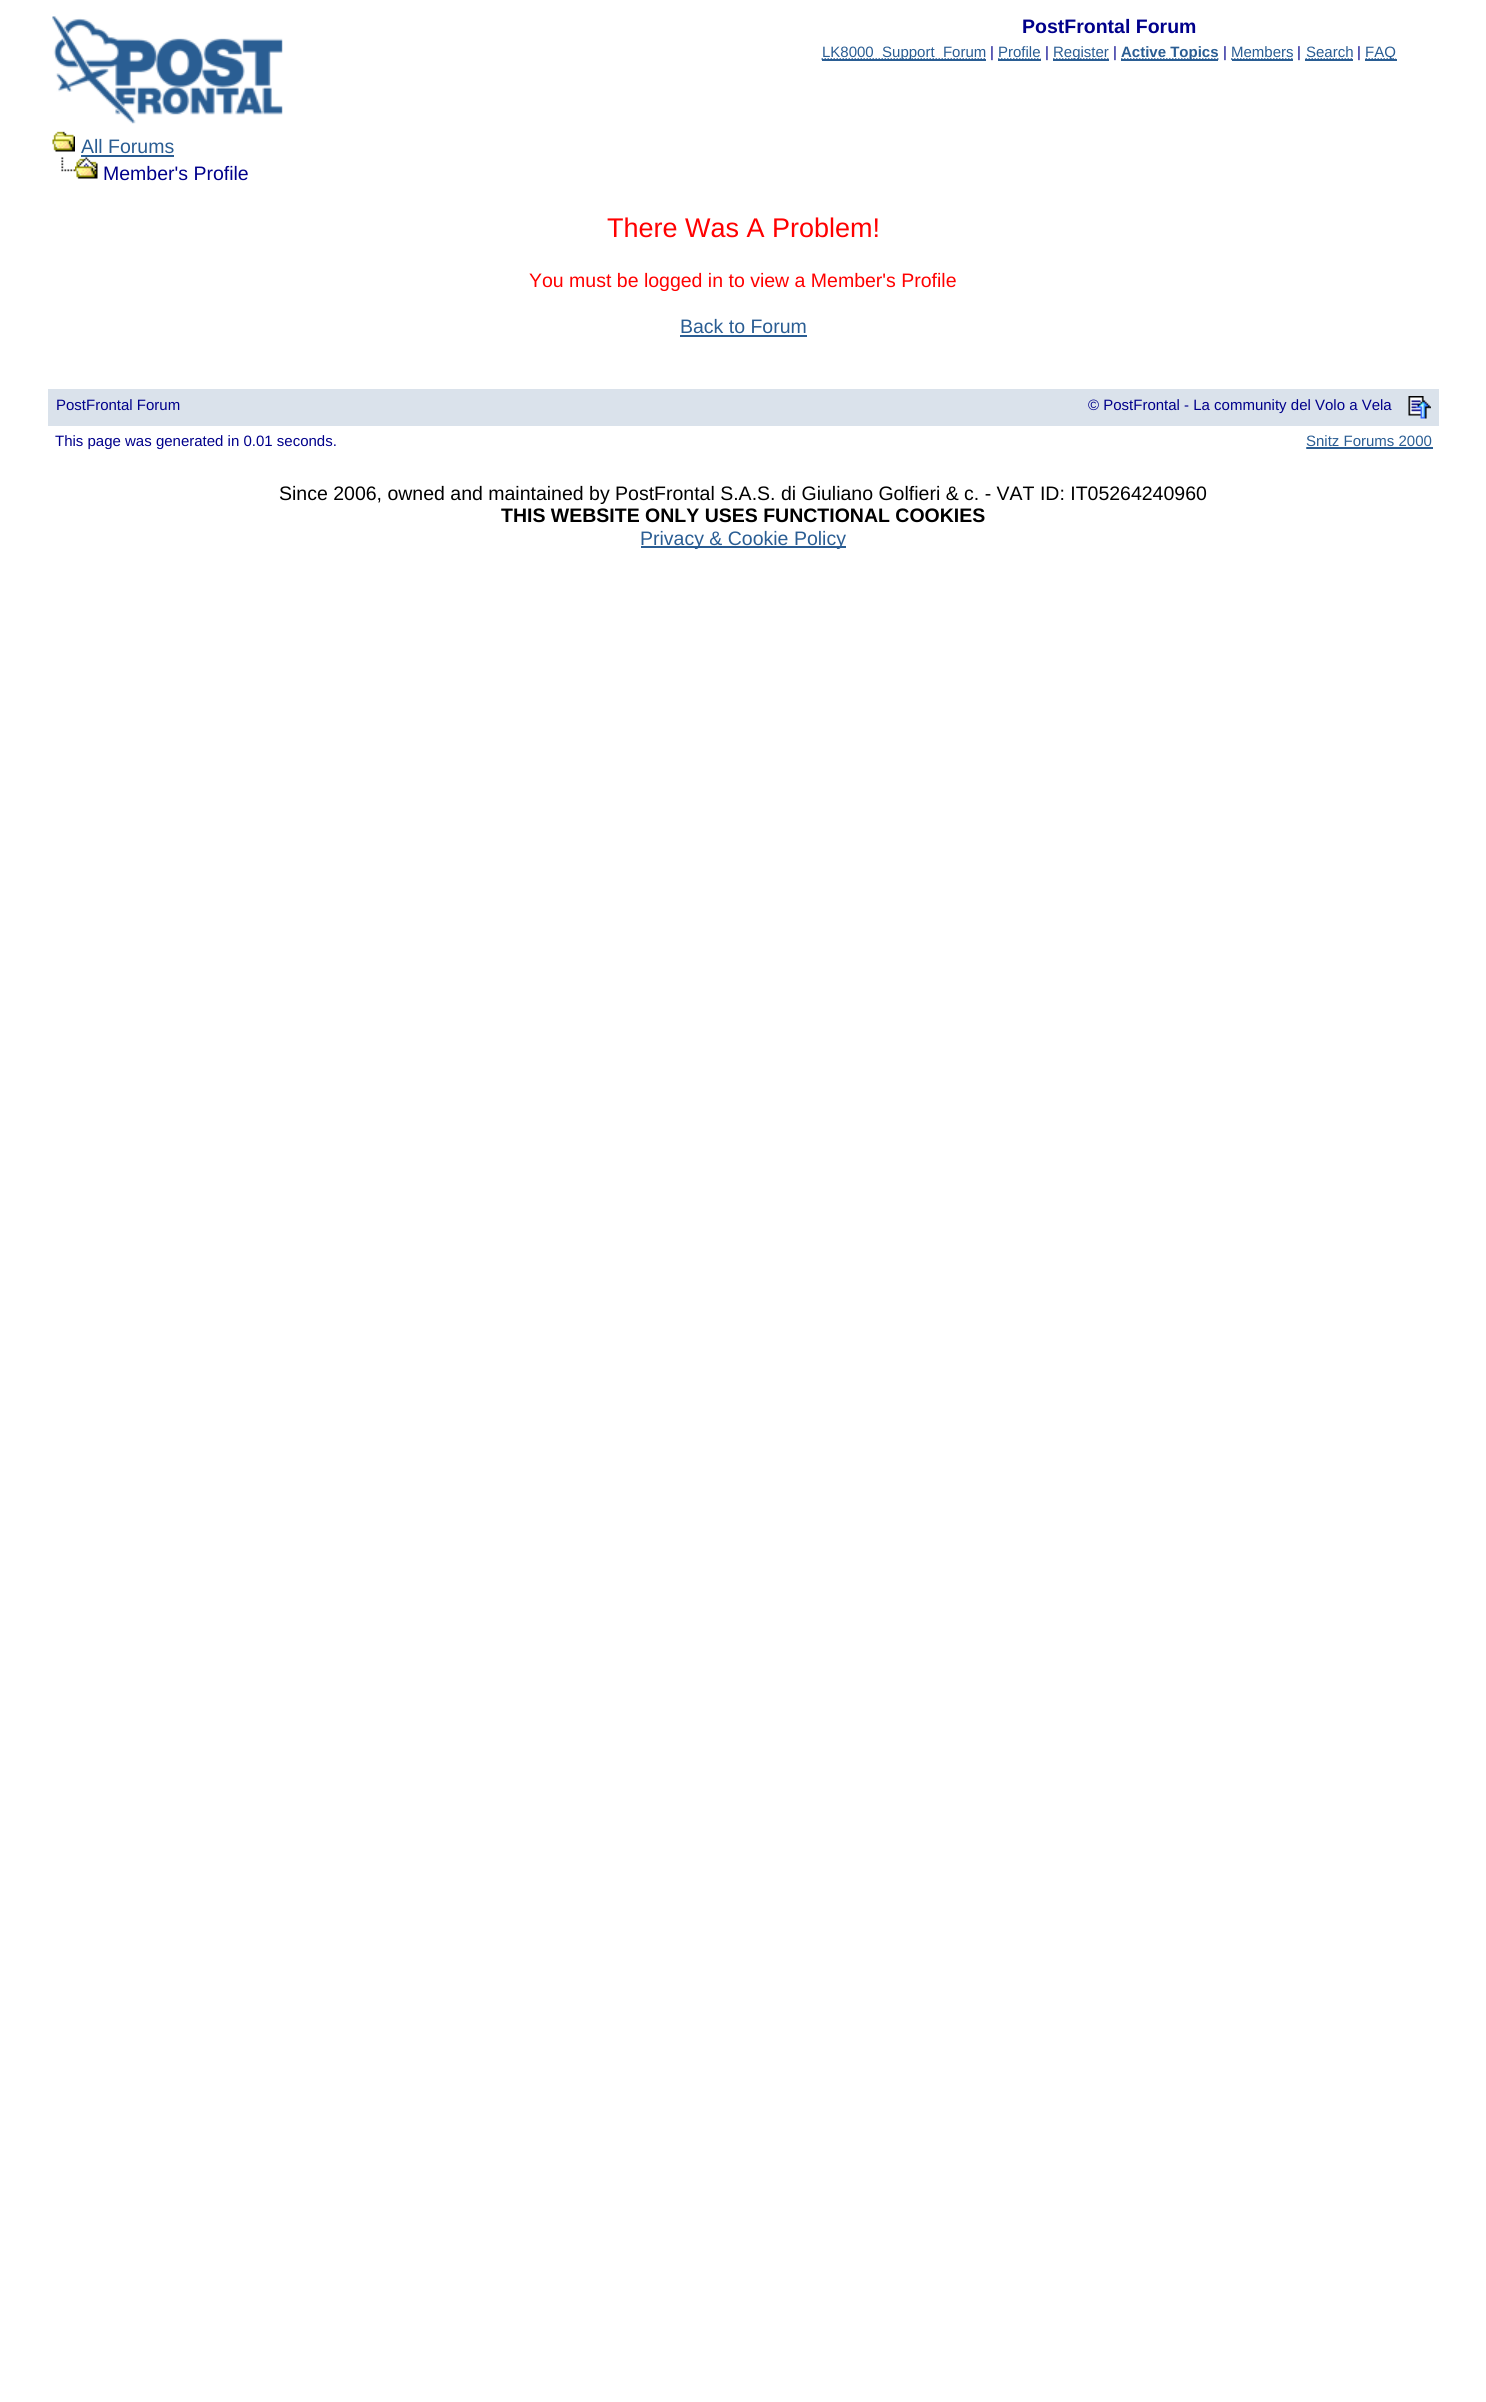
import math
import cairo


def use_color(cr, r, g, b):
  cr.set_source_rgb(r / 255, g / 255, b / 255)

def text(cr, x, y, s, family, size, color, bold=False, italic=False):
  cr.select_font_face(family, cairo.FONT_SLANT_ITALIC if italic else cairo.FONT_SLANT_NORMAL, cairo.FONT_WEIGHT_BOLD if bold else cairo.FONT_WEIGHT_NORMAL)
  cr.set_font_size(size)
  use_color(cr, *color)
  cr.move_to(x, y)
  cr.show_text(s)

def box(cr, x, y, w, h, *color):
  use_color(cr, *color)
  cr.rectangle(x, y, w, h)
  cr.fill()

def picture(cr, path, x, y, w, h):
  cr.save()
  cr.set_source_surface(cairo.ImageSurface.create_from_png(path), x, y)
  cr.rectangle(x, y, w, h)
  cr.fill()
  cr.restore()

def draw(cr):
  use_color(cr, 255, 255, 255)
  cr.paint()
  picture(cr, "img_01.png", 52, 16, 231, 108)
  cr.new_path()
  cr.move_to(821.5, 59)
  cr.line_to(986, 59)
  use_color(cr, 42, 93, 147)
  cr.set_line_width(1.5)
  cr.set_dash([1.5, 1.5])
  cr.stroke()
  box(cr, 822, 59, 164, 2, 42, 93, 147)
  cr.new_path()
  cr.move_to(998, 59)
  cr.line_to(1040.5, 59)
  cr.stroke()
  box(cr, 998, 59, 43, 2, 42, 93, 147)
  cr.new_path()
  cr.move_to(1053, 59)
  cr.line_to(1109, 59)
  cr.stroke()
  box(cr, 1053, 59, 56, 2, 42, 93, 147)
  cr.new_path()
  cr.move_to(1121, 59)
  cr.line_to(1218.5, 59)
  cr.stroke()
  box(cr, 1121, 59, 97, 2, 42, 93, 147)
  cr.new_path()
  cr.move_to(1231, 59)
  cr.line_to(1293.5, 59)
  cr.stroke()
  box(cr, 1232, 59, 61, 2, 42, 93, 147)
  cr.new_path()
  cr.move_to(1305.5, 59)
  cr.line_to(1353, 59)
  cr.stroke()
  box(cr, 1305, 59, 48, 2, 42, 93, 147)
  cr.new_path()
  cr.move_to(1365.5, 59)
  cr.line_to(1396, 59)
  cr.stroke()
  box(cr, 1365, 59, 32, 2, 42, 93, 147)
  picture(cr, "img_02.png", 52, 131, 23, 21)
  box(cr, 81, 155, 93, 2, 42, 93, 147)
  picture(cr, "img_03.png", 61, 157, 14, 15)
  picture(cr, "img_04.png", 75, 157, 23, 22)
  box(cr, 680, 335, 127, 2, 42, 93, 147)
  box(cr, 48, 389, 1391, 37, 218, 226, 235)
  picture(cr, "img_05.png", 1408, 396, 23, 23)
  cr.new_path()
  cr.move_to(1306, 448)
  cr.line_to(1432, 448)
  use_color(cr, 42, 93, 147)
  cr.stroke()
  box(cr, 1307, 447, 126, 2, 42, 93, 147)
  box(cr, 641, 546, 205, 2, 42, 93, 147)
  text(cr, 1022, 33, "PostFrontal Forum", "Liberation Sans", 19.5, (0, 0, 139), bold=True)
  text(cr, 822, 57, "LK8000_Support_Forum", "Liberation Sans", 15, (42, 93, 147))
  text(cr, 990, 57, "|", "Liberation Sans", 15, (0, 0, 139))
  text(cr, 998, 57, "Profile", "Liberation Sans", 15, (42, 93, 147))
  text(cr, 1045, 57, "|", "Liberation Sans", 15, (0, 0, 139))
  text(cr, 1053, 57, "Register", "Liberation Sans", 15, (42, 93, 147))
  text(cr, 1113, 57, "|", "Liberation Sans", 15, (0, 0, 139))
  text(cr, 1121, 57, "Active Topics", "Liberation Sans", 15, (42, 93, 147), bold=True)
  text(cr, 1223, 57, "|", "Liberation Sans", 15, (0, 0, 139))
  text(cr, 1231, 57, "Members", "Liberation Sans", 15, (42, 93, 147))
  text(cr, 1297, 57, "|", "Liberation Sans", 15, (0, 0, 139))
  text(cr, 1306, 57, "Search", "Liberation Sans", 15, (42, 93, 147))
  text(cr, 1357, 57, "|", "Liberation Sans", 15, (0, 0, 139))
  text(cr, 1365, 57, "FAQ", "Liberation Sans", 15, (42, 93, 147))
  text(cr, 81, 153, "All Forums", "Liberation Sans", 19.5, (42, 93, 147))
  text(cr, 103, 180, "Member's Profile", "Liberation Sans", 19.5, (0, 0, 139))
  text(cr, 607, 237, "There Was A Problem!", "Liberation Sans", 27, (255, 0, 0))
  text(cr, 529, 287, "You must be logged in to view a Member's Profile", "Liberation Sans", 19.5, (255, 0, 0))
  text(cr, 680, 333, "Back to Forum", "Liberation Sans", 19.5, (42, 93, 147))
  text(cr, 56, 410, "PostFrontal Forum", "Liberation Sans", 15, (0, 0, 139))
  text(cr, 1088, 410, "© PostFrontal - La community del Volo a Vela", "Liberation Sans", 15, (0, 0, 139))
  text(cr, 55, 446, "This page was generated in 0.01 seconds.", "Liberation Sans", 15, (0, 0, 139))
  text(cr, 1306, 446, "Snitz Forums 2000", "Liberation Sans", 15, (42, 93, 147))
  text(cr, 279, 500, "Since 2006, owned and maintained by PostFrontal S.A.S. di Giuliano Golfieri & c. - VAT ID: IT05264240960", "Liberation Sans", 19.5, (0, 0, 0))
  text(cr, 501, 522, "THIS WEBSITE ONLY USES FUNCTIONAL COOKIES", "Liberation Sans", 19.5, (0, 0, 0), bold=True)
  text(cr, 640, 545, "Privacy & Cookie Policy", "Liberation Sans", 19.5, (42, 93, 147))


surface = cairo.ImageSurface(cairo.FORMAT_RGB24, 1486, 2402)
cr = cairo.Context(surface)
options = cairo.FontOptions()
options.set_hint_metrics(cairo.HINT_METRICS_OFF)
options.set_hint_style(cairo.HINT_STYLE_NONE)
cr.set_font_options(options)
cr.set_miter_limit(4)
draw(cr)
surface.write_to_png("out.png")
